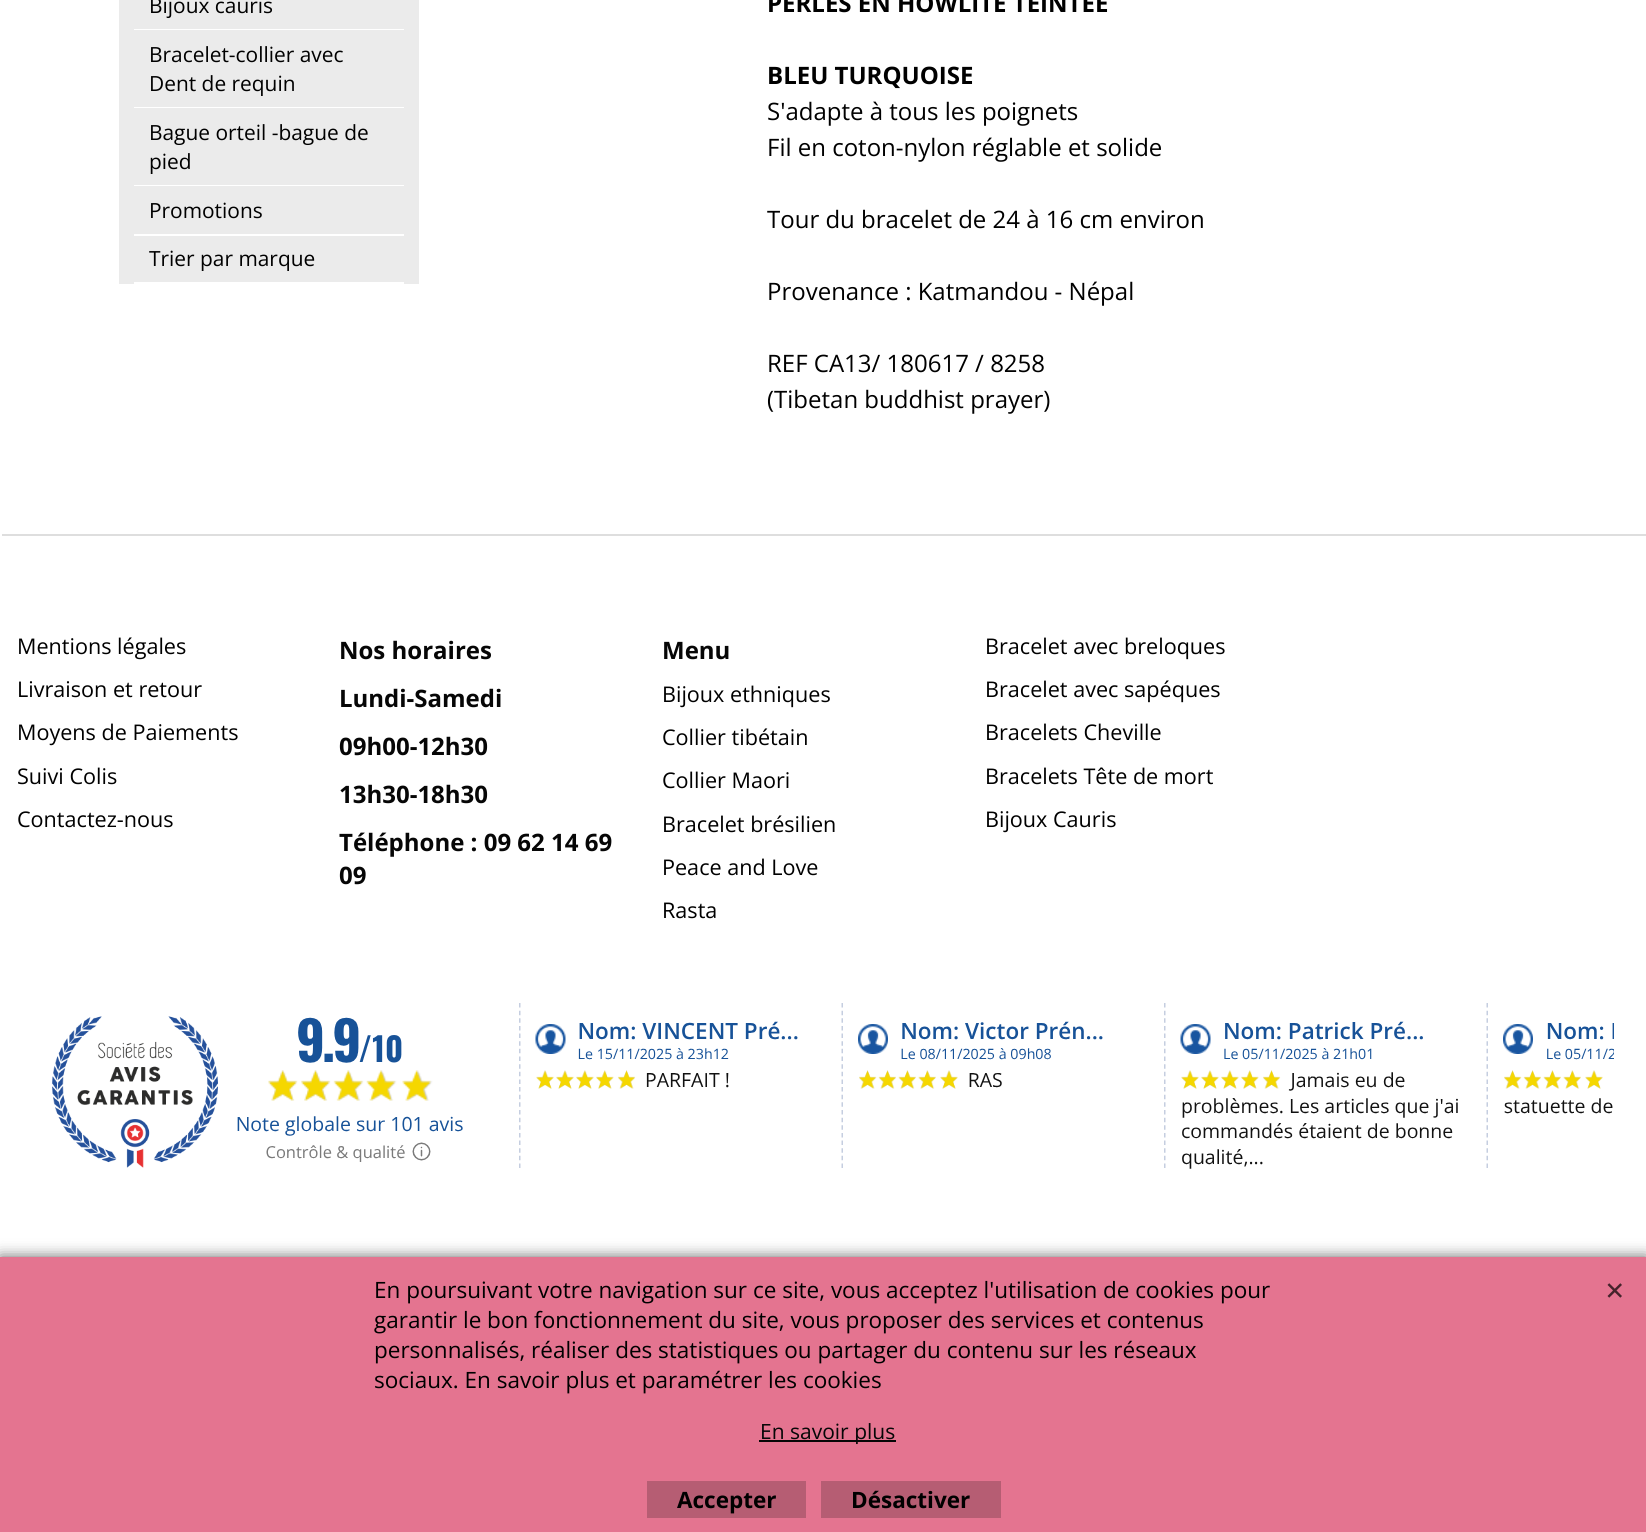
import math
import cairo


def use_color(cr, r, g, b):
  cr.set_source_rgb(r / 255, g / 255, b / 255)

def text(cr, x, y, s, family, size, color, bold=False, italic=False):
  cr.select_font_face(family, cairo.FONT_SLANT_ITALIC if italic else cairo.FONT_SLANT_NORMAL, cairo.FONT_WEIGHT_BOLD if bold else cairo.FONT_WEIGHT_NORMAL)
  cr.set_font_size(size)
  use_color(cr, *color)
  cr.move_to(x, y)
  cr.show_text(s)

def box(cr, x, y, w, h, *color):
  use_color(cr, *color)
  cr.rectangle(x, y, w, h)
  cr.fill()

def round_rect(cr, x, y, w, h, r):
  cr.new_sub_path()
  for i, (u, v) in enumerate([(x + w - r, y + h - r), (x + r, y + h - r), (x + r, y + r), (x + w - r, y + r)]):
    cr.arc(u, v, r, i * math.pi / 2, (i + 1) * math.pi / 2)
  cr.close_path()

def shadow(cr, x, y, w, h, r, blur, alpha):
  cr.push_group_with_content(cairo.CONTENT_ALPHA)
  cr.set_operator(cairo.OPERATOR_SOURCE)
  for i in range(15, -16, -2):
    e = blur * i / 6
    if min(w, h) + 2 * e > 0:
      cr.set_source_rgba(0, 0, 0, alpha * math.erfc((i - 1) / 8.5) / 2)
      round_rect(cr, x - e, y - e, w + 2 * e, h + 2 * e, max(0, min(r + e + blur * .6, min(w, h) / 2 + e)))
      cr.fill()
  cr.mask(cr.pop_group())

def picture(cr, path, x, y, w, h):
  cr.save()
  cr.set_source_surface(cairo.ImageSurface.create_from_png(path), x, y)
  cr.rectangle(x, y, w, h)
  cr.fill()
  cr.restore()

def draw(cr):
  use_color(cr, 255, 255, 255)
  cr.paint()
  box(cr, 119, 0, 300, 284, 235, 235, 235)
  box(cr, 134, 29, 270, 1, 255, 255, 255)
  box(cr, 134, 107, 270, 1, 255, 255, 255)
  box(cr, 134, 185, 270, 1, 255, 255, 255)
  box(cr, 134, 234, 270, 2, 255, 255, 255)
  box(cr, 134, 282, 270, 2, 255, 255, 255)
  box(cr, 2, 534, 1644, 2, 222, 222, 222)
  picture(cr, "img_01.png", 52, 1003, 1562, 166)
  use_color(cr, 102, 102, 102)
  shadow(cr, 0, 1257, 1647, 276, 0, 7.5, 1)
  box(cr, 0, 1257, 1646, 275, 228, 116, 144)
  box(cr, 759, 1440, 137, 2, 6, 6, 6)
  picture(cr, "img_02.png", 1607, 1283, 15, 15)
  box(cr, 647, 1481, 159, 37, 182, 93, 115)
  box(cr, 821, 1481, 180, 37, 182, 93, 115)
  text(cr, 149, 13, "Bijoux cauris", "Open Sans", 20.9, (0, 0, 0))
  text(cr, 149, 62, "Bracelet-collier avec", "Open Sans", 20.9, (0, 0, 0))
  text(cr, 149, 91, "Dent de requin", "Open Sans", 20.9, (0, 0, 0))
  text(cr, 149, 140, "Bague orteil -bague de", "Open Sans", 20.9, (0, 0, 0))
  text(cr, 149, 169, "pied", "Open Sans", 20.9, (0, 0, 0))
  text(cr, 149, 218, "Promotions", "Open Sans", 20.9, (0, 0, 0))
  text(cr, 149, 266, "Trier par marque", "Open Sans", 20.9, (0, 0, 0))
  text(cr, 767, 12, "PERLES EN HOWLITE TEINTEE", "Open Sans", 24, (0, 0, 0), bold=True)
  text(cr, 767, 84, "BLEU TURQUOISE", "Open Sans", 24, (0, 0, 0), bold=True)
  text(cr, 767, 120, "S'adapte à tous les poignets", "Open Sans", 24, (0, 0, 0))
  text(cr, 767, 156, "Fil en coton-nylon réglable et solide", "Open Sans", 24, (0, 0, 0))
  text(cr, 767, 228, "Tour du bracelet de 24 à 16 cm environ", "Open Sans", 24, (0, 0, 0))
  text(cr, 767, 300, "Provenance : Katmandou - Népal", "Open Sans", 24, (0, 0, 0))
  text(cr, 767, 372, "REF CA13/ 180617 / 8258", "Open Sans", 24, (0, 0, 0))
  text(cr, 767, 408, "(Tibetan buddhist prayer)", "Open Sans", 24, (0, 0, 0))
  text(cr, 17, 654, "Mentions légales", "Open Sans", 21.6, (0, 0, 0))
  text(cr, 17, 697, "Livraison et retour", "Open Sans", 21.6, (0, 0, 0))
  text(cr, 17, 740, "Moyens de Paiements", "Open Sans", 21.6, (0, 0, 0))
  text(cr, 17, 784, "Suivi Colis", "Open Sans", 21.6, (0, 0, 0))
  text(cr, 17, 827, "Contactez-nous", "Open Sans", 21.6, (0, 0, 0))
  text(cr, 339, 659, "Nos horaires", "Open Sans", 24, (6, 6, 6), bold=True)
  text(cr, 339, 707, "Lundi-Samedi", "Open Sans", 24, (6, 6, 6), bold=True)
  text(cr, 339, 755, "09h00-12h30", "Open Sans", 24, (6, 6, 6), bold=True)
  text(cr, 339, 803, "13h30-18h30", "Open Sans", 24, (6, 6, 6), bold=True)
  text(cr, 339, 851, "Téléphone : 09 62 14 69", "Open Sans", 24, (6, 6, 6), bold=True)
  text(cr, 339, 884, "09", "Open Sans", 24, (6, 6, 6), bold=True)
  text(cr, 662, 659, "Menu", "Open Sans", 24, (6, 6, 6), bold=True)
  text(cr, 662, 702, "Bijoux ethniques", "Open Sans", 21.6, (0, 0, 0))
  text(cr, 662, 745, "Collier tibétain", "Open Sans", 21.6, (0, 0, 0))
  text(cr, 662, 788, "Collier Maori", "Open Sans", 21.6, (0, 0, 0))
  text(cr, 662, 832, "Bracelet brésilien", "Open Sans", 21.6, (0, 0, 0))
  text(cr, 662, 875, "Peace and Love", "Open Sans", 21.6, (0, 0, 0))
  text(cr, 662, 918, "Rasta", "Open Sans", 21.6, (0, 0, 0))
  text(cr, 985, 654, "Bracelet avec breloques", "Open Sans", 21.6, (0, 0, 0))
  text(cr, 985, 697, "Bracelet avec sapéques", "Open Sans", 21.6, (0, 0, 0))
  text(cr, 985, 740, "Bracelets Cheville", "Open Sans", 21.6, (0, 0, 0))
  text(cr, 985, 784, "Bracelets Tête de mort", "Open Sans", 21.6, (0, 0, 0))
  text(cr, 985, 827, "Bijoux Cauris", "Open Sans", 21.6, (0, 0, 0))
  text(cr, 374, 1298, "En poursuivant votre navigation sur ce site, vous acceptez l'utilisation de cookies pour", "Open Sans", 22.5, (0, 0, 0))
  text(cr, 374, 1328, "garantir le bon fonctionnement du site, vous proposer des services et contenus", "Open Sans", 22.5, (0, 0, 0))
  text(cr, 374, 1358, "personnalisés, réaliser des statistiques ou partager du contenu sur les réseaux", "Open Sans", 22.5, (0, 0, 0))
  text(cr, 374, 1388, "sociaux. En savoir plus et paramétrer les cookies", "Open Sans", 22.5, (0, 0, 0))
  text(cr, 760, 1439, "En savoir plus", "Open Sans", 21, (6, 6, 6))
  text(cr, 677, 1508, "Accepter", "Open Sans", 22.5, (0, 0, 0), bold=True)
  text(cr, 851, 1508, "Désactiver", "Open Sans", 22.5, (0, 0, 0), bold=True)


surface = cairo.ImageSurface(cairo.FORMAT_RGB24, 1646, 1532)
cr = cairo.Context(surface)
options = cairo.FontOptions()
options.set_hint_metrics(cairo.HINT_METRICS_OFF)
options.set_hint_style(cairo.HINT_STYLE_NONE)
cr.set_font_options(options)
cr.set_miter_limit(4)
draw(cr)
surface.write_to_png("out.png")
